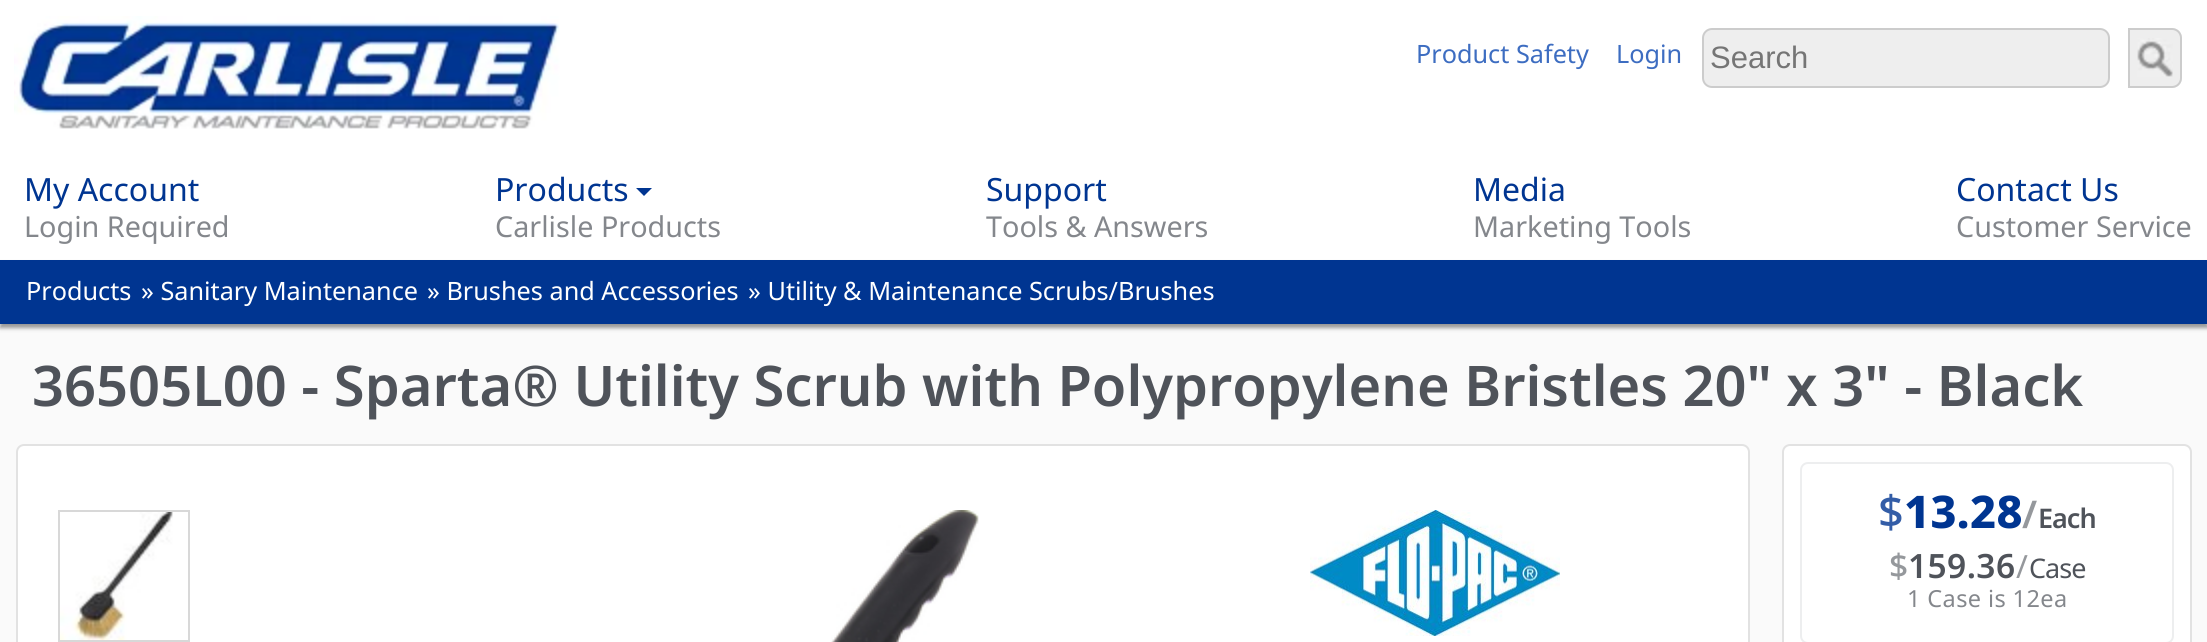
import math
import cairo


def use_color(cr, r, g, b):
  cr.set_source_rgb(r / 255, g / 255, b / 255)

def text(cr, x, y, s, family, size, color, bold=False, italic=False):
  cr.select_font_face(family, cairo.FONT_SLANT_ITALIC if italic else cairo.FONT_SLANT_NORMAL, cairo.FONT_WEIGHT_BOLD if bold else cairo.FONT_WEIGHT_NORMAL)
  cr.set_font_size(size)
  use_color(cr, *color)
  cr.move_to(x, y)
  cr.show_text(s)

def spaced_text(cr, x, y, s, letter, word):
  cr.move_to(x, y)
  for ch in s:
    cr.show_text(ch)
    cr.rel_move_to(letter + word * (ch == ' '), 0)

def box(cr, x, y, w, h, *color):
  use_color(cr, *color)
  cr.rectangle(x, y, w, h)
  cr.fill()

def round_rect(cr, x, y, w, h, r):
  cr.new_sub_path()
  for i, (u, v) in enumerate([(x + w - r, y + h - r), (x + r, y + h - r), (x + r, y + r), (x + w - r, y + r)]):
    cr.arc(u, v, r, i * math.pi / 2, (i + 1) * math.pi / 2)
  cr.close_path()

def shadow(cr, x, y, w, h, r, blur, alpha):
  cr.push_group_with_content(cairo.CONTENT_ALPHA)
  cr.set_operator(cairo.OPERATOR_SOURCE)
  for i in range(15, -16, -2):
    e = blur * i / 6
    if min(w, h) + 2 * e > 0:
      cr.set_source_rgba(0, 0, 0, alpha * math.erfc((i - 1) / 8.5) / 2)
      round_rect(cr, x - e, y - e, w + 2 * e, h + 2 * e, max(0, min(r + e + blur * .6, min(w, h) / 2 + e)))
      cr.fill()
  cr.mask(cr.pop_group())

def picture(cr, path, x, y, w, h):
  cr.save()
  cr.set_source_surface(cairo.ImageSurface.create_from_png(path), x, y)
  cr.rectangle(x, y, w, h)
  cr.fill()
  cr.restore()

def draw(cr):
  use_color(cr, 250, 250, 250)
  cr.paint()
  box(cr, 0, 0, 2207, 260, 255, 255, 255)
  picture(cr, "img_01.png", 14, 16, 546, 113)
  use_color(cr, 238, 238, 238)
  round_rect(cr, 1703, 29, 406, 58, 9)
  cr.fill_preserve()
  use_color(cr, 204, 204, 204)
  cr.stroke()
  use_color(cr, 238, 238, 238)
  cr.new_path()
  cr.move_to(2128, 28)
  cr.line_to(2172, 28)
  cr.curve_to(2177.5, 28, 2182, 32.5, 2182, 38)
  cr.line_to(2182, 78)
  cr.curve_to(2182, 83.5, 2177.5, 88, 2172, 88)
  cr.line_to(2128, 88)
  cr.close_path()
  cr.fill()
  picture(cr, "img_02.png", 2137, 38, 36, 39)
  cr.new_path()
  cr.move_to(2129, 29)
  cr.line_to(2172, 29)
  cr.curve_to(2177, 29, 2181, 33, 2181, 38)
  cr.line_to(2181, 78)
  cr.curve_to(2181, 83, 2177, 87, 2172, 87)
  cr.line_to(2129, 87)
  cr.close_path()
  use_color(cr, 204, 204, 204)
  cr.stroke()
  use_color(cr, 0, 53, 145)
  cr.new_path()
  cr.move_to(636, 188)
  cr.line_to(652, 188)
  cr.line_to(644, 196)
  cr.close_path()
  cr.fill()
  use_color(cr, 0, 0, 0)
  shadow(cr, 0, 264, 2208, 64, 0, 2, 0.4)
  box(cr, 0, 260, 2207, 64, 0, 53, 145)
  use_color(cr, 255, 255, 255)
  round_rect(cr, 18, 446, 1730, 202, 6)
  cr.fill()
  round_rect(cr, 17, 445, 1732, 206, 7)
  use_color(cr, 226, 226, 226)
  cr.stroke()
  cr.rectangle(59, 511, 130, 130)
  use_color(cr, 216, 216, 216)
  cr.stroke()
  picture(cr, "img_03.png", 60, 512, 113, 128)
  picture(cr, "img_04.png", 831, 510, 148, 132)
  picture(cr, "img_05.png", 1310, 510, 250, 126)
  use_color(cr, 255, 255, 255)
  round_rect(cr, 1784, 446, 406, 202, 6)
  cr.fill()
  round_rect(cr, 1783, 445, 408, 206, 7)
  use_color(cr, 226, 226, 226)
  cr.stroke()
  round_rect(cr, 1801, 463, 372, 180, 7)
  use_color(cr, 237, 238, 239)
  cr.stroke()
  text(cr, 1416, 63, "Product Safety", "Noto Sans", 25.25, (61, 109, 193))
  text(cr, 1616, 63, "Login", "Noto Sans", 25.25, (61, 109, 193))
  text(cr, 1710, 68, "Search", "Liberation Sans", 31, (117, 117, 117))
  text(cr, 24, 201, "My Account", "Noto Sans", 32, (0, 53, 145))
  text(cr, 24, 237, "Login Required", "Noto Sans", 28.75, (132, 135, 140))
  text(cr, 495, 201, "Products", "Noto Sans", 32, (0, 53, 145))
  text(cr, 495, 237, "Carlisle Products", "Noto Sans", 28.75, (132, 135, 140))
  text(cr, 986, 201, "Support", "Noto Sans", 32, (0, 53, 145))
  text(cr, 986, 237, "Tools & Answers", "Noto Sans", 28.75, (132, 135, 140))
  text(cr, 1473, 201, "Media", "Noto Sans", 32, (0, 53, 145))
  text(cr, 1473, 237, "Marketing Tools", "Noto Sans", 28.75, (132, 135, 140))
  text(cr, 1956, 201, "Contact Us", "Noto Sans", 32, (0, 53, 145))
  text(cr, 1956, 237, "Customer Service", "Noto Sans", 28.75, (132, 135, 140))
  text(cr, 26, 300, "Products", "Noto Sans", 25.25, (255, 255, 255))
  text(cr, 141, 300, "» Sanitary Maintenance", "Noto Sans", 25.25, (255, 255, 255))
  text(cr, 427, 300, "» Brushes and Accessories", "Noto Sans", 25.25, (255, 255, 255))
  text(cr, 748, 300, "» Utility & Maintenance Scrubs/Brushes", "Noto Sans", 25.25, (255, 255, 255))
  text(cr, 32, 406, "36505L00 - Sparta® Utility Scrub with Polypropylene Bristles 20\" x 3\" - Black", "Noto Sans SemiBold", 56, (79, 83, 90))
  cr.select_font_face("Noto Sans Medium")
  cr.set_font_size(45)
  use_color(cr, 51, 93, 167)
  spaced_text(cr, 1878, 528, "$", 0.4, 0)
  cr.select_font_face("Noto Sans ExtraBold")
  use_color(cr, 0, 53, 145)
  spaced_text(cr, 1904, 528, "13.28", 0.4, 0)
  cr.select_font_face("Noto Sans SemiBold")
  cr.set_font_size(38)
  use_color(cr, 149, 152, 156)
  spaced_text(cr, 2022, 528, "/", -1, 0)
  cr.set_font_size(27)
  use_color(cr, 79, 83, 90)
  spaced_text(cr, 2038, 528, "Each", -1, 0)
  cr.select_font_face("Noto Sans Medium")
  cr.set_font_size(33.5)
  use_color(cr, 149, 152, 156)
  spaced_text(cr, 1889, 578, "$", 0.4, 0)
  cr.select_font_face("Noto Sans SemiBold")
  use_color(cr, 79, 83, 90)
  spaced_text(cr, 1908, 578, "159.36", 0.4, 0)
  cr.select_font_face("Noto Sans")
  cr.set_font_size(32)
  use_color(cr, 149, 152, 156)
  spaced_text(cr, 2016, 578, "/", -1, 0)
  cr.set_font_size(27)
  use_color(cr, 79, 83, 90)
  spaced_text(cr, 2029, 578, "Case", -1, 0)
  cr.set_font_size(23.5)
  use_color(cr, 132, 135, 140)
  spaced_text(cr, 1907, 607, "1 Case is 12ea", 0.4, 0)


surface = cairo.ImageSurface(cairo.FORMAT_RGB24, 2207, 642)
cr = cairo.Context(surface)
options = cairo.FontOptions()
options.set_hint_metrics(cairo.HINT_METRICS_OFF)
options.set_hint_style(cairo.HINT_STYLE_NONE)
cr.set_font_options(options)
cr.set_miter_limit(4)
draw(cr)
surface.write_to_png("out.png")
